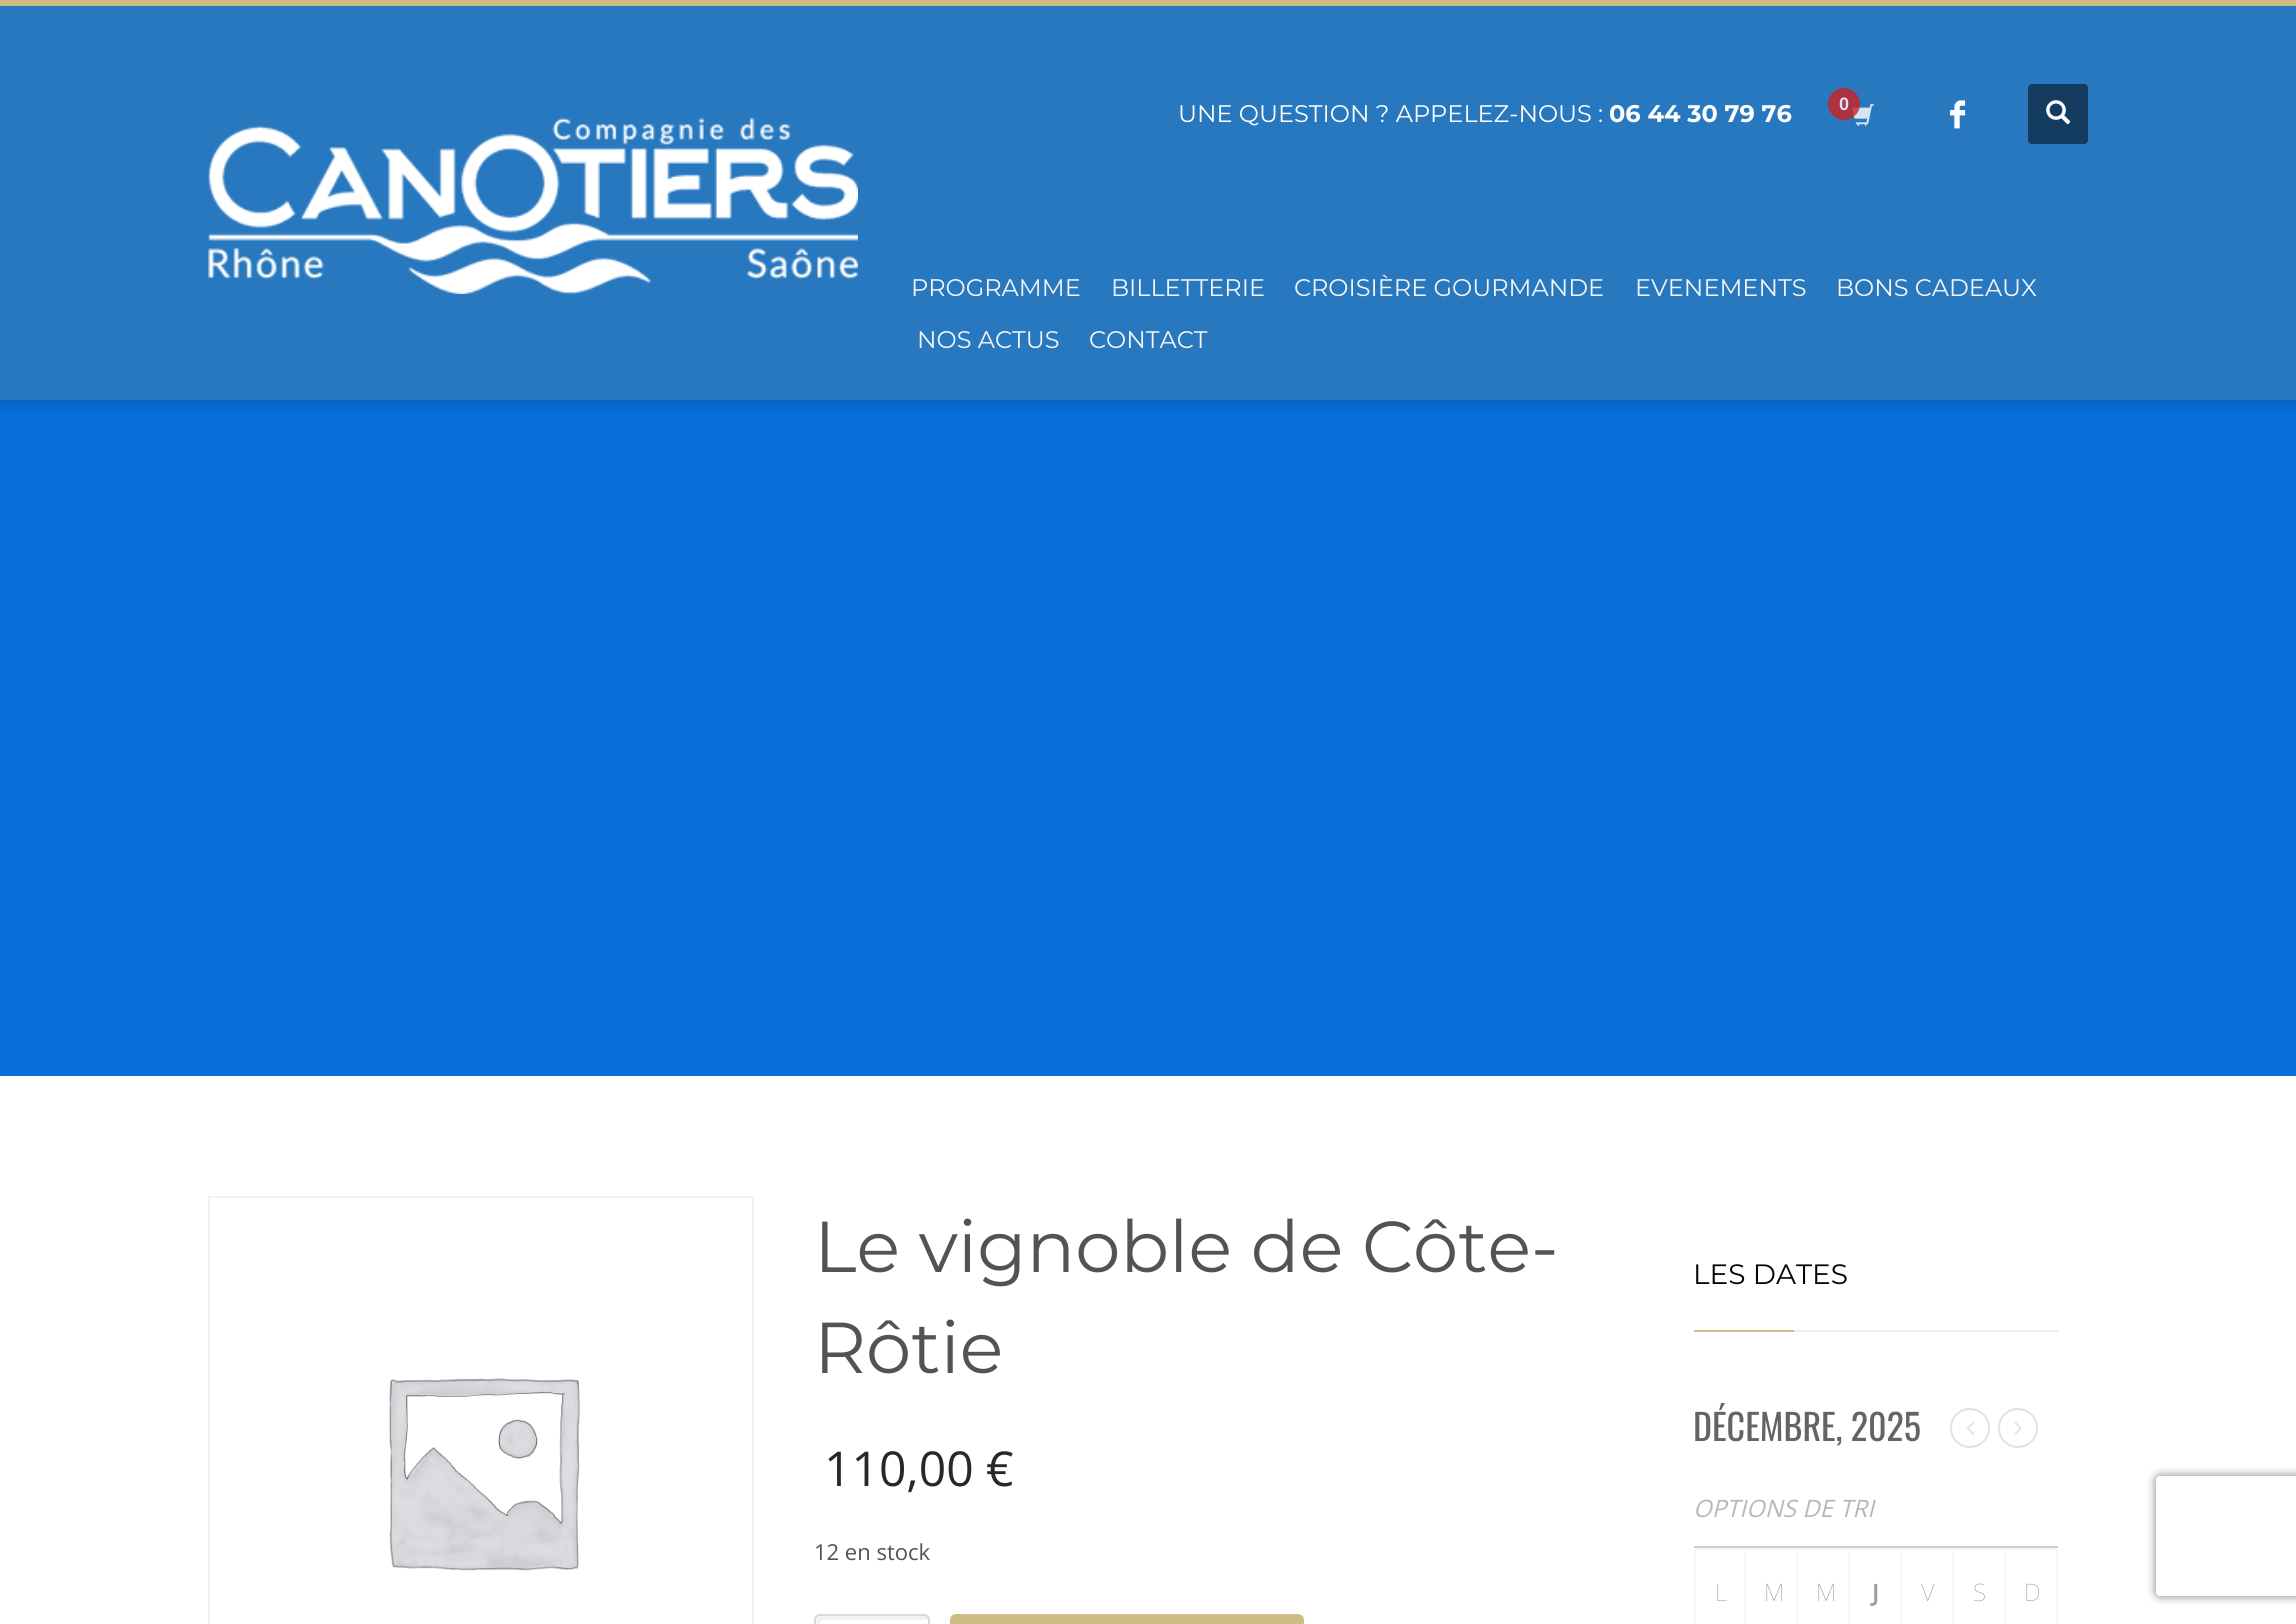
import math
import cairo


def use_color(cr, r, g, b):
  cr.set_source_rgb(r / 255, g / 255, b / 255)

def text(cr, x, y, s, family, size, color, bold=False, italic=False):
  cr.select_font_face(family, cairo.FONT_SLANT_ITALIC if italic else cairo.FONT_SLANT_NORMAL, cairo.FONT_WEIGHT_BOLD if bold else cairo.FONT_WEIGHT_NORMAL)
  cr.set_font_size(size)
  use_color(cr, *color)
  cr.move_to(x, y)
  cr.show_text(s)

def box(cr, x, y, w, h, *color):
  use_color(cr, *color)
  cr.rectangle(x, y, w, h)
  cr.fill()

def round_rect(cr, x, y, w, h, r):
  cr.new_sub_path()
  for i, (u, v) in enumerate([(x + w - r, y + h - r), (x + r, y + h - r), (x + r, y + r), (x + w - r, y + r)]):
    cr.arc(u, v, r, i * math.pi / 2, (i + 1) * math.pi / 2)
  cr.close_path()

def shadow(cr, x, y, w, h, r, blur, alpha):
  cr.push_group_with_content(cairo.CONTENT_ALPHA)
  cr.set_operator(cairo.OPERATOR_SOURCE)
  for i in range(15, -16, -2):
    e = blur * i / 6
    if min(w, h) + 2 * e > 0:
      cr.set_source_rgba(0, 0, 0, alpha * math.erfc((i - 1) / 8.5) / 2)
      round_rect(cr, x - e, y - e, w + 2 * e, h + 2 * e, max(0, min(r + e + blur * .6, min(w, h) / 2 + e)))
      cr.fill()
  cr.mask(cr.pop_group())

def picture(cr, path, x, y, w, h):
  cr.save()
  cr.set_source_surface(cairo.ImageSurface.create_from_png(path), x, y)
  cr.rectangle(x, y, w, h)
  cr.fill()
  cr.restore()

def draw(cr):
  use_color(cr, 255, 255, 255)
  cr.paint()
  box(cr, 0, 400, 2296, 676, 6, 111, 217)
  use_color(cr, 0, 0, 0)
  shadow(cr, 0, 6, 2296, 400, 0, 5, 0.1)
  box(cr, 0, 6, 2296, 394, 40, 120, 191)
  box(cr, 0, 0, 2296, 6, 204, 190, 133)
  picture(cr, "img_01.png", 208, 118, 650, 176)
  picture(cr, "img_02.png", 1852, 104, 22, 22)
  cr.set_source_rgba(0.804, 0.129, 0.133, 0.8)
  cr.arc(1844, 104, 16, 0, 2 * math.pi)
  cr.fill()
  picture(cr, "img_03.png", 1950, 100, 16, 29)
  use_color(cr, 20, 60, 96)
  round_rect(cr, 2028, 84, 60, 60, 4)
  cr.fill()
  picture(cr, "img_04.png", 2046, 100, 25, 25)
  cr.rectangle(209, 1197, 544, 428)
  use_color(cr, 242, 242, 242)
  cr.stroke()
  picture(cr, "img_05.png", 389, 1378, 191, 193)
  cr.new_path()
  cr.move_to(824, 1620)
  cr.line_to(928, 1620)
  cr.curve_to(928, 1618, 926, 1616, 924, 1616)
  cr.line_to(820, 1616)
  cr.curve_to(818, 1616, 816, 1618, 816, 1620)
  cr.line_to(816, 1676)
  cr.curve_to(816, 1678, 818, 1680, 820, 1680)
  cr.line_to(820, 1624)
  cr.curve_to(820, 1622, 822, 1620, 824, 1620)
  cr.close_path()
  cr.fill()
  round_rect(cr, 815, 1615, 114, 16, 5)
  use_color(cr, 217, 217, 217)
  cr.stroke()
  use_color(cr, 204, 190, 133)
  round_rect(cr, 950, 1614, 354, 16, 6)
  cr.fill()
  box(cr, 1694, 1330, 100, 2, 204, 190, 133)
  box(cr, 1794, 1330, 264, 2, 236, 236, 236)
  cr.arc(1970, 1428, 19, 0, 2 * math.pi)
  use_color(cr, 226, 226, 226)
  cr.stroke()
  picture(cr, "img_06.png", 1966, 1421, 9, 14)
  cr.arc(2018, 1428, 19, 0, 2 * math.pi)
  cr.stroke()
  picture(cr, "img_07.png", 2014, 1421, 8, 14)
  box(cr, 1694, 1546, 364, 2, 205, 205, 205)
  box(cr, 1694, 1548, 2, 76, 247, 247, 247)
  box(cr, 1696, 1548, 362, 2, 247, 247, 247)
  cr.new_path()
  cr.move_to(1746, 1548)
  cr.line_to(1746, 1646)
  cr.line_to(1744, 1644)
  cr.line_to(1744, 1550)
  cr.close_path()
  cr.fill()
  cr.new_path()
  cr.move_to(1798, 1548)
  cr.line_to(1798, 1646)
  cr.line_to(1796, 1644)
  cr.line_to(1796, 1550)
  cr.close_path()
  cr.fill()
  cr.new_path()
  cr.move_to(1850, 1548)
  cr.line_to(1850, 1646)
  cr.line_to(1848, 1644)
  cr.line_to(1848, 1550)
  cr.close_path()
  cr.fill()
  cr.new_path()
  cr.move_to(1902, 1548)
  cr.line_to(1902, 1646)
  cr.line_to(1900, 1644)
  cr.line_to(1900, 1550)
  cr.close_path()
  cr.fill()
  cr.new_path()
  cr.move_to(1954, 1548)
  cr.line_to(1954, 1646)
  cr.line_to(1952, 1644)
  cr.line_to(1952, 1550)
  cr.close_path()
  cr.fill()
  cr.new_path()
  cr.move_to(2006, 1548)
  cr.line_to(2006, 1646)
  cr.line_to(2004, 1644)
  cr.line_to(2004, 1550)
  cr.close_path()
  cr.fill()
  cr.new_path()
  cr.move_to(2058, 1548)
  cr.line_to(2058, 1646)
  cr.line_to(2056, 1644)
  cr.line_to(2056, 1550)
  cr.close_path()
  cr.fill()
  cr.save()
  cr.set_fill_rule(cairo.FILL_RULE_EVEN_ODD)
  cr.new_path()
  cr.move_to(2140, 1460)
  cr.line_to(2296, 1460)
  cr.line_to(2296, 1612)
  cr.line_to(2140, 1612)
  cr.close_path()
  cr.move_to(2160, 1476)
  cr.line_to(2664, 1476)
  cr.curve_to(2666, 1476, 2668, 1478, 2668, 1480)
  cr.line_to(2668, 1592)
  cr.curve_to(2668, 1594, 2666, 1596, 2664, 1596)
  cr.line_to(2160, 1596)
  cr.curve_to(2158, 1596, 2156, 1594, 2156, 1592)
  cr.line_to(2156, 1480)
  cr.curve_to(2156, 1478, 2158, 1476, 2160, 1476)
  cr.close_path()
  cr.clip()
  use_color(cr, 128, 128, 128)
  shadow(cr, 2156, 1476, 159, 120, 4, 5, 1)
  cr.restore()
  text(cr, 1178, 122, "UNE QUESTION ? APPELEZ-NOUS :", "Montserrat", 24, (255, 255, 255))
  text(cr, 1609, 122, "06 44 30 79 76", "Montserrat", 24, (255, 255, 255), bold=True)
  text(cr, 1839, 110, "0", "Liberation Sans", 18, (212, 228, 242), bold=True)
  text(cr, 911, 296, "PROGRAMME", "Montserrat", 24, (245, 245, 245))
  text(cr, 1111, 296, "BILLETTERIE", "Montserrat", 24, (245, 245, 245))
  text(cr, 1294, 296, "CROISIÈRE GOURMANDE", "Montserrat", 24, (245, 245, 245))
  text(cr, 1635, 296, "EVENEMENTS", "Montserrat", 24, (245, 245, 245))
  text(cr, 1836, 296, "BONS CADEAUX", "Montserrat", 24, (245, 245, 245))
  text(cr, 917, 348, "NOS ACTUS", "Montserrat", 24, (245, 245, 245))
  text(cr, 1089, 348, "CONTACT", "Montserrat", 24, (245, 245, 245))
  text(cr, 814, 1272, "Le vignoble de Côte-", "Montserrat", 72, (83, 83, 83))
  text(cr, 814, 1373, "Rôtie", "Montserrat", 72, (83, 83, 83))
  text(cr, 824, 1486, "110,00 €", "Open Sans", 48, (40, 40, 40))
  text(cr, 814, 1560, "12 en stock", "Open Sans", 22, (83, 83, 83))
  text(cr, 1693, 1284, "LES DATES", "Montserrat", 28, (5, 5, 5))
  text(cr, 1693, 1441, "DÉCEMBRE, 2025", "Oswald", 36, (100, 100, 100))
  text(cr, 1693, 1517, "OPTIONS DE TRI", "Open Sans", 24, (184, 184, 184), italic=True)
  text(cr, 1715, 1601, "L", "Noto Sans Thin", 24, (158, 158, 158))
  text(cr, 1764, 1601, "M", "Noto Sans Thin", 24, (158, 158, 158))
  text(cr, 1816, 1601, "M", "Noto Sans Thin", 24, (158, 158, 158))
  text(cr, 1872, 1601, "J", "Noto Sans SemiBold", 24, (158, 158, 158))
  text(cr, 1921, 1601, "V", "Noto Sans Thin", 24, (158, 158, 158))
  text(cr, 1973, 1601, "S", "Noto Sans Thin", 24, (158, 158, 158))
  text(cr, 2024, 1601, "D", "Noto Sans Thin", 24, (158, 158, 158))


surface = cairo.ImageSurface(cairo.FORMAT_RGB24, 2296, 1624)
cr = cairo.Context(surface)
options = cairo.FontOptions()
options.set_hint_metrics(cairo.HINT_METRICS_OFF)
options.set_hint_style(cairo.HINT_STYLE_NONE)
cr.set_font_options(options)
cr.set_miter_limit(4)
draw(cr)
surface.write_to_png("out.png")
